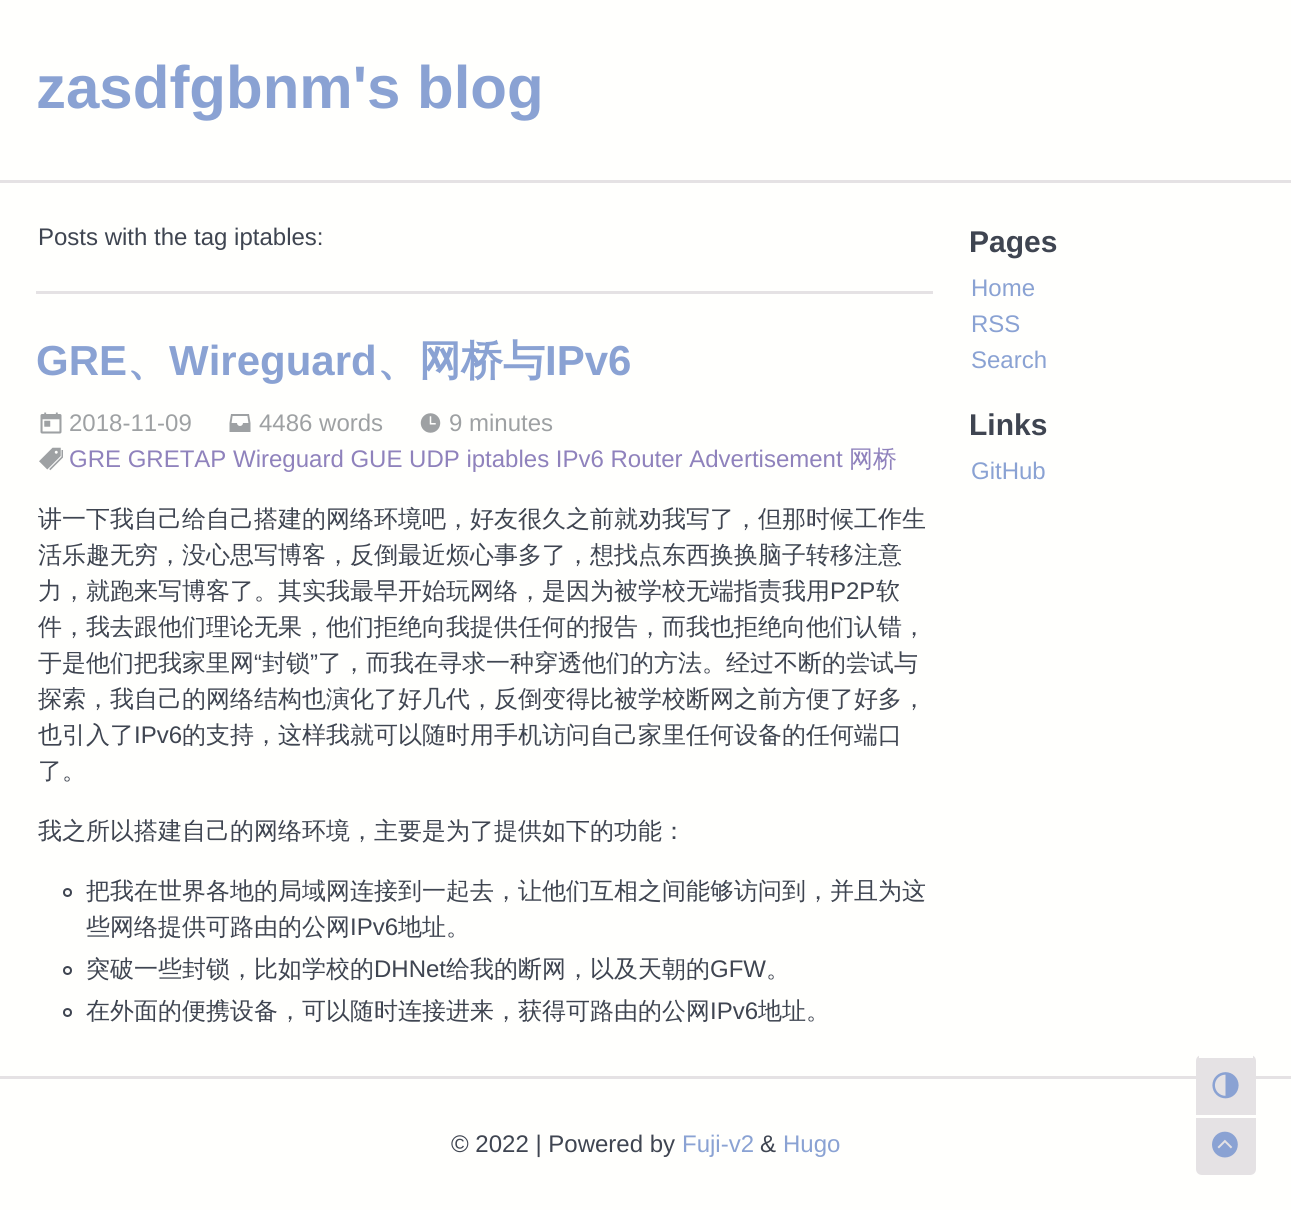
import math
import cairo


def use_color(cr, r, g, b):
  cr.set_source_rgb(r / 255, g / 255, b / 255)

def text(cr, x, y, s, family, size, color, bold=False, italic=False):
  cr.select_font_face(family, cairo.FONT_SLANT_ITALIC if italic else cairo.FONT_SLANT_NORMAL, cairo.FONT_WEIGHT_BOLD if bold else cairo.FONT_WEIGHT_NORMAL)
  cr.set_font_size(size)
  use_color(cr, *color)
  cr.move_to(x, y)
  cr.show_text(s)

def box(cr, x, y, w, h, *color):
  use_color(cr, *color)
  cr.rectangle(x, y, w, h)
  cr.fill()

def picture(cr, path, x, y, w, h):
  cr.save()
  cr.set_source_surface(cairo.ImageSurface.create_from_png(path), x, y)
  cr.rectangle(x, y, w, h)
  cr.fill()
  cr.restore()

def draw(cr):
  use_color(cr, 255, 255, 253)
  cr.paint()
  box(cr, 0, 180, 1291, 3, 229, 226, 228)
  box(cr, 36, 291, 897, 3, 229, 226, 228)
  picture(cr, "img_01.png", 40, 412, 22, 22)
  picture(cr, "img_02.png", 229, 414, 22, 18)
  picture(cr, "img_03.png", 420, 413, 21, 20)
  picture(cr, "img_04.png", 39, 447, 24, 24)
  cr.arc(67.5, 892.5, 3.5, 0, 2 * math.pi)
  use_color(cr, 63, 69, 81)
  cr.stroke()
  cr.arc(67.5, 970.5, 3.5, 0, 2 * math.pi)
  cr.stroke()
  cr.arc(67.5, 1012.5, 3.5, 0, 2 * math.pi)
  cr.stroke()
  box(cr, 0, 1076, 1291, 3, 229, 226, 228)
  cr.new_path()
  cr.move_to(1202, 1055)
  cr.line_to(1250, 1055)
  cr.curve_to(1253.5, 1055, 1256, 1057.5, 1256, 1061)
  cr.line_to(1256, 1115)
  cr.line_to(1196, 1115)
  cr.line_to(1196, 1061)
  cr.curve_to(1196, 1057.5, 1198.5, 1055, 1202, 1055)
  cr.close_path()
  cr.fill()
  box(cr, 1199, 1055, 54, 3, 255, 255, 253)
  picture(cr, "img_05.png", 1212, 1072, 27, 27)
  use_color(cr, 229, 226, 228)
  cr.new_path()
  cr.move_to(1196, 1115)
  cr.line_to(1256, 1115)
  cr.line_to(1256, 1169)
  cr.curve_to(1256, 1172.5, 1253.5, 1175, 1250, 1175)
  cr.line_to(1202, 1175)
  cr.curve_to(1198.5, 1175, 1196, 1172.5, 1196, 1169)
  cr.close_path()
  cr.fill()
  box(cr, 1196, 1115, 60, 3, 255, 255, 253)
  picture(cr, "img_06.png", 1212, 1131, 26, 27)
  text(cr, 36, 108, "zasdfgbnm's blog", "Liberation Sans", 60, (138, 162, 211), bold=True)
  text(cr, 38, 245, "Posts with the tag iptables:", "Liberation Sans", 24, (63, 69, 81))
  text(cr, 36, 375, "GRE", "Liberation Sans", 42, (138, 162, 211), bold=True)
  text(cr, 127, 375, "、", "WenQuanYi Zen Hei", 42, (138, 162, 211), bold=True)
  text(cr, 169, 375, "Wireguard", "Liberation Sans", 42, (138, 162, 211), bold=True)
  text(cr, 377, 375, "、网桥与", "WenQuanYi Zen Hei", 42, (138, 162, 211), bold=True)
  text(cr, 545, 375, "IPv6", "Liberation Sans", 42, (138, 162, 211), bold=True)
  text(cr, 69, 431, "2018-11-09", "Liberation Sans", 24, (158, 161, 163))
  text(cr, 259, 431, "4486 words", "Liberation Sans", 24, (158, 161, 163))
  text(cr, 449, 431, "9 minutes", "Liberation Sans", 24, (158, 161, 163))
  text(cr, 69, 467, "GRE GRETAP Wireguard GUE UDP iptables IPv6 Router Advertisement", "Liberation Sans", 24, (143, 130, 188))
  text(cr, 849, 467, "网桥", "WenQuanYi Zen Hei Medium", 24, (143, 130, 188))
  text(cr, 38, 527, "讲一下我自己给自己搭建的网络环境吧，好友很久之前就劝我写了，但那时候工作生", "WenQuanYi Zen Hei Medium", 24, (63, 69, 81))
  text(cr, 38, 563, "活乐趣无穷，没心思写博客，反倒最近烦心事多了，想找点东西换换脑子转移注意", "WenQuanYi Zen Hei Medium", 24, (63, 69, 81))
  text(cr, 38, 599, "力，就跑来写博客了。其实我最早开始玩网络，是因为被学校无端指责我用", "WenQuanYi Zen Hei Medium", 24, (63, 69, 81))
  text(cr, 830, 599, "P2P", "Liberation Sans", 24, (63, 69, 81))
  text(cr, 876, 599, "软", "WenQuanYi Zen Hei Medium", 24, (63, 69, 81))
  text(cr, 38, 635, "件，我去跟他们理论无果，他们拒绝向我提供任何的报告，而我也拒绝向他们认错，", "WenQuanYi Zen Hei Medium", 24, (63, 69, 81))
  text(cr, 38, 671, "于是他们把我家里网", "WenQuanYi Zen Hei Medium", 24, (63, 69, 81))
  text(cr, 254, 671, "“", "Liberation Sans", 24, (63, 69, 81))
  text(cr, 262, 671, "封锁", "WenQuanYi Zen Hei Medium", 24, (63, 69, 81))
  text(cr, 310, 671, "”", "Liberation Sans", 24, (63, 69, 81))
  text(cr, 318, 671, "了，而我在寻求一种穿透他们的方法。经过不断的尝试与", "WenQuanYi Zen Hei Medium", 24, (63, 69, 81))
  text(cr, 38, 707, "探索，我自己的网络结构也演化了好几代，反倒变得比被学校断网之前方便了好多，", "WenQuanYi Zen Hei Medium", 24, (63, 69, 81))
  text(cr, 38, 743, "也引入了", "WenQuanYi Zen Hei Medium", 24, (63, 69, 81))
  text(cr, 134, 743, "IPv6", "Liberation Sans", 24, (63, 69, 81))
  text(cr, 182, 743, "的支持，这样我就可以随时用手机访问自己家里任何设备的任何端口", "WenQuanYi Zen Hei Medium", 24, (63, 69, 81))
  text(cr, 38, 779, "了。", "WenQuanYi Zen Hei Medium", 24, (63, 69, 81))
  text(cr, 38, 839, "我之所以搭建自己的网络环境，主要是为了提供如下的功能：", "WenQuanYi Zen Hei Medium", 24, (63, 69, 81))
  text(cr, 86, 899, "把我在世界各地的局域网连接到一起去，让他们互相之间能够访问到，并且为这", "WenQuanYi Zen Hei Medium", 24, (63, 69, 81))
  text(cr, 86, 935, "些网络提供可路由的公网", "WenQuanYi Zen Hei Medium", 24, (63, 69, 81))
  text(cr, 350, 935, "IPv6", "Liberation Sans", 24, (63, 69, 81))
  text(cr, 398, 935, "地址。", "WenQuanYi Zen Hei Medium", 24, (63, 69, 81))
  text(cr, 86, 977, "突破一些封锁，比如学校的", "WenQuanYi Zen Hei Medium", 24, (63, 69, 81))
  text(cr, 374, 977, "DHNet", "Liberation Sans", 24, (63, 69, 81))
  text(cr, 446, 977, "给我的断网，以及天朝的", "WenQuanYi Zen Hei Medium", 24, (63, 69, 81))
  text(cr, 710, 977, "GFW", "Liberation Sans", 24, (63, 69, 81))
  text(cr, 766, 977, "。", "WenQuanYi Zen Hei Medium", 24, (63, 69, 81))
  text(cr, 86, 1019, "在外面的便携设备，可以随时连接进来，获得可路由的公网", "WenQuanYi Zen Hei Medium", 24, (63, 69, 81))
  text(cr, 710, 1019, "IPv6", "Liberation Sans", 24, (63, 69, 81))
  text(cr, 758, 1019, "地址。", "WenQuanYi Zen Hei Medium", 24, (63, 69, 81))
  text(cr, 969, 252, "Pages", "Liberation Sans", 30, (63, 69, 81), bold=True)
  text(cr, 971, 296, "Home", "Liberation Sans", 24, (138, 162, 211))
  text(cr, 971, 332, "RSS", "Liberation Sans", 24, (138, 162, 211))
  text(cr, 971, 368, "Search", "Liberation Sans", 24, (138, 162, 211))
  text(cr, 969, 435, "Links", "Liberation Sans", 30, (63, 69, 81), bold=True)
  text(cr, 971, 479, "GitHub", "Liberation Sans", 24, (138, 162, 211))
  text(cr, 451, 1152, "© 2022 | Powered by", "Liberation Sans", 24, (63, 69, 81))
  text(cr, 682, 1152, "Fuji-v2", "Liberation Sans", 24, (138, 162, 211))
  text(cr, 760, 1152, "&", "Liberation Sans", 24, (63, 69, 81))
  text(cr, 783, 1152, "Hugo", "Liberation Sans", 24, (138, 162, 211))


surface = cairo.ImageSurface(cairo.FORMAT_RGB24, 1291, 1210)
cr = cairo.Context(surface)
options = cairo.FontOptions()
options.set_hint_metrics(cairo.HINT_METRICS_OFF)
options.set_hint_style(cairo.HINT_STYLE_NONE)
cr.set_font_options(options)
cr.set_miter_limit(4)
draw(cr)
surface.write_to_png("out.png")
